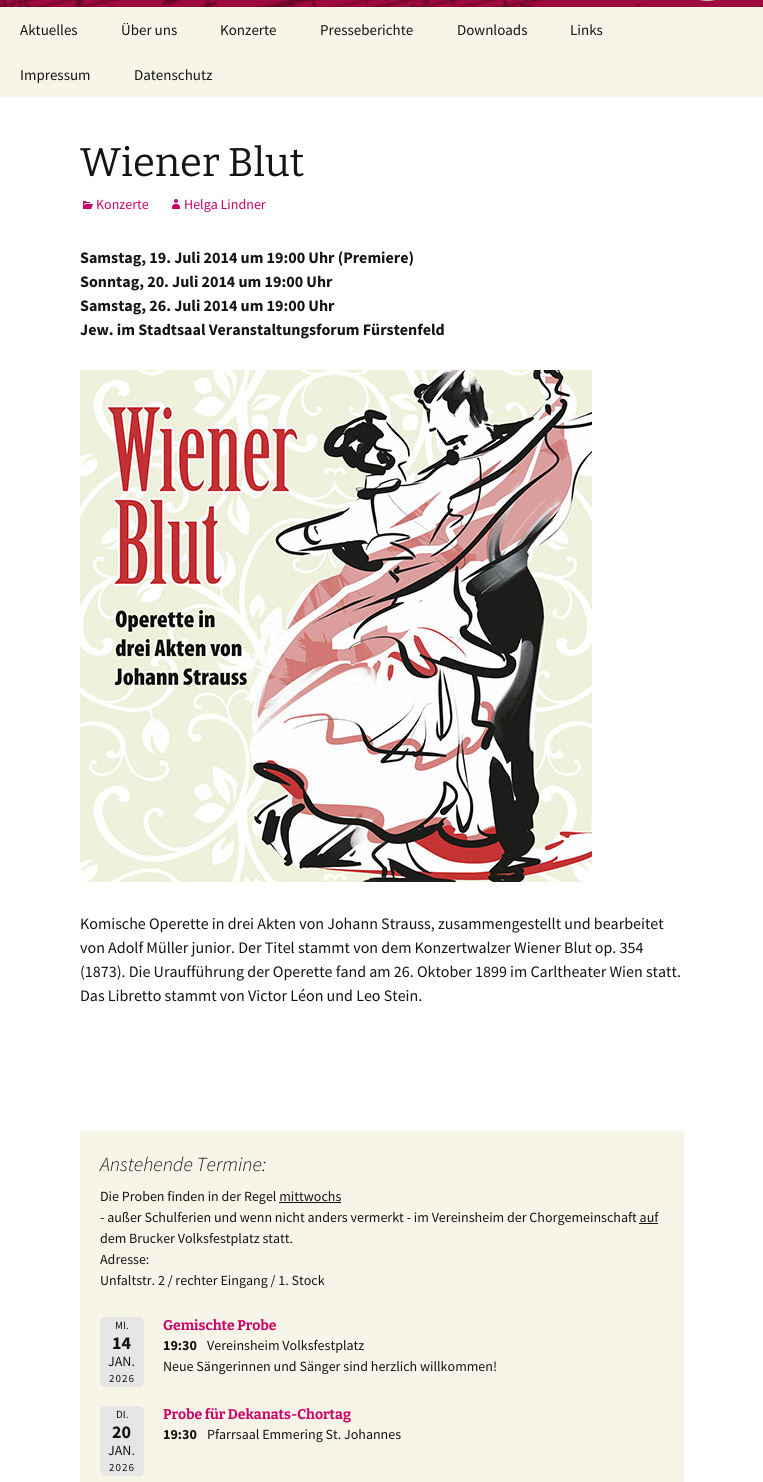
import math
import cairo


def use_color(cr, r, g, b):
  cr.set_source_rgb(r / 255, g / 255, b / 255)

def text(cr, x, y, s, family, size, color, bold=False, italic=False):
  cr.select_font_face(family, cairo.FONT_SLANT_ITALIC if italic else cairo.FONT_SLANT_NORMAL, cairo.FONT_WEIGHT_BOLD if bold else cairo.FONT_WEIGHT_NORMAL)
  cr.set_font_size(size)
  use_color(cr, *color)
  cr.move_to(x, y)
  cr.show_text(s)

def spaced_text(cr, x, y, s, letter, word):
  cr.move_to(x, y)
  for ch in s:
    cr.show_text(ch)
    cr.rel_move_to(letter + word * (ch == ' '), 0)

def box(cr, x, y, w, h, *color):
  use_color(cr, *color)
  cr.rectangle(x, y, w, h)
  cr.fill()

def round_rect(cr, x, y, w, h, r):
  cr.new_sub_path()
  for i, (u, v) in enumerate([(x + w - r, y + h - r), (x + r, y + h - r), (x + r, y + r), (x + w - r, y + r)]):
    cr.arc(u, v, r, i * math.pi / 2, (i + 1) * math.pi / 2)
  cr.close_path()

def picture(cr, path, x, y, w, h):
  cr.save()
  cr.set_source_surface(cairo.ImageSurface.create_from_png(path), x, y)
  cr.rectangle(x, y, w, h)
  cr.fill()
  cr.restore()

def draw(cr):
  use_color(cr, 255, 255, 255)
  cr.paint()
  picture(cr, "img_01.png", 0, 0, 763, 7)
  picture(cr, "img_02.png", 699, 0, 16, 1)
  box(cr, 0, 7, 763, 90, 247, 245, 231)
  picture(cr, "img_03.png", 83, 201, 10, 8)
  picture(cr, "img_04.png", 172, 199, 8, 10)
  picture(cr, "img_05.png", 80, 370, 512, 512)
  box(cr, 80, 1131, 604, 351, 247, 245, 231)
  box(cr, 279, 1202, 62, 1, 20, 20, 18)
  box(cr, 639, 1223, 19, 1, 20, 20, 18)
  use_color(cr, 230, 230, 230)
  round_rect(cr, 100, 1317, 44, 70, 5)
  cr.fill()
  round_rect(cr, 100, 1406, 44, 70, 5)
  cr.fill()
  text(cr, 20, 35, "Aktuelles", "Source Sans Pro", 15, (20, 20, 18))
  text(cr, 121, 35, "Über uns", "Source Sans Pro", 15, (20, 20, 18))
  text(cr, 220, 35, "Konzerte", "Source Sans Pro", 15, (20, 20, 18))
  text(cr, 320, 35, "Presseberichte", "Source Sans Pro", 15, (20, 20, 18))
  text(cr, 457, 35, "Downloads", "Source Sans Pro", 15, (20, 20, 18))
  text(cr, 570, 35, "Links", "Source Sans Pro", 15, (20, 20, 18))
  text(cr, 20, 80, "Impressum", "Source Sans Pro", 15, (20, 20, 18))
  text(cr, 134, 80, "Datenschutz", "Source Sans Pro", 15, (20, 20, 18))
  text(cr, 80, 176, "Wiener Blut", "Bitter", 40, (20, 20, 18))
  text(cr, 96, 209, "Konzerte", "Source Sans Pro", 14, (204, 0, 102))
  text(cr, 184, 209, "Helga Lindner", "Source Sans Pro", 14, (204, 0, 102))
  text(cr, 80, 263, "Samstag, 19. Juli 2014 um 19:00 Uhr (Premiere)", "Source Sans Pro", 16, (20, 20, 18), bold=True)
  text(cr, 80, 287, "Sonntag, 20. Juli 2014 um 19:00 Uhr", "Source Sans Pro", 16, (20, 20, 18), bold=True)
  text(cr, 80, 311, "Samstag, 26. Juli 2014 um 19:00 Uhr", "Source Sans Pro", 16, (20, 20, 18), bold=True)
  text(cr, 80, 335, "Jew. im Stadtsaal Veranstaltungsforum Fürstenfeld", "Source Sans Pro", 16, (20, 20, 18), bold=True)
  text(cr, 80, 929, "Komische Operette in drei Akten von Johann Strauss, zusammengestellt und bearbeitet", "Source Sans Pro", 16, (20, 20, 18))
  text(cr, 80, 953, "von Adolf Müller junior. Der Titel stammt von dem Konzertwalzer Wiener Blut op. 354", "Source Sans Pro", 16, (20, 20, 18))
  text(cr, 80, 977, "(1873). Die Uraufführung der Operette fand am 26. Oktober 1899 im Carltheater Wien statt.", "Source Sans Pro", 16, (20, 20, 18))
  text(cr, 80, 1001, "Das Libretto stammt von Victor Léon und Leo Stein.", "Source Sans Pro", 16, (20, 20, 18))
  text(cr, 100, 1171, "Anstehende Termine:", "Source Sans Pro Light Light", 20, (20, 20, 18), italic=True)
  text(cr, 100, 1201, "Die Proben finden in der Regel mittwochs", "Source Sans Pro", 14, (20, 20, 18))
  text(cr, 100, 1222, "- außer Schulferien und wenn nicht anders vermerkt - im Vereinsheim der Chorgemeinschaft auf", "Source Sans Pro", 14, (20, 20, 18))
  text(cr, 100, 1243, "dem Brucker Volksfestplatz statt.", "Source Sans Pro", 14, (20, 20, 18))
  text(cr, 100, 1264, "Adresse:", "Source Sans Pro", 14, (20, 20, 18))
  text(cr, 100, 1285, "Unfaltstr. 2 / rechter Eingang / 1. Stock", "Source Sans Pro", 14, (20, 20, 18))
  text(cr, 115, 1329, "MI.", "Source Sans Pro", 11, (20, 20, 18))
  text(cr, 112, 1349, "14", "Source Sans Pro", 18, (20, 20, 18), bold=True)
  text(cr, 108, 1366, "JAN.", "Source Sans Pro", 14, (20, 20, 18))
  cr.set_font_size(11)
  spaced_text(cr, 109, 1382, "2026", 1, 0)
  text(cr, 163, 1330, "Gemischte Probe", "Bitter", 14, (204, 0, 102), bold=True)
  text(cr, 163, 1350, "19:30", "Source Sans Pro", 14, (20, 20, 18), bold=True)
  text(cr, 207, 1350, "Vereinsheim Volksfestplatz", "Source Sans Pro", 14, (20, 20, 18))
  text(cr, 163, 1371, "Neue Sängerinnen und Sänger sind herzlich willkommen!", "Source Sans Pro", 14, (20, 20, 18))
  text(cr, 116, 1418, "DI.", "Source Sans Pro", 11, (20, 20, 18))
  text(cr, 112, 1438, "20", "Source Sans Pro", 18, (20, 20, 18), bold=True)
  text(cr, 108, 1455, "JAN.", "Source Sans Pro", 14, (20, 20, 18))
  cr.set_font_size(11)
  spaced_text(cr, 109, 1471, "2026", 1, 0)
  text(cr, 163, 1419, "Probe für Dekanats-Chortag", "Bitter", 14, (204, 0, 102), bold=True)
  text(cr, 163, 1439, "19:30", "Source Sans Pro", 14, (20, 20, 18), bold=True)
  text(cr, 207, 1439, "Pfarrsaal Emmering St. Johannes", "Source Sans Pro", 14, (20, 20, 18))


surface = cairo.ImageSurface(cairo.FORMAT_RGB24, 763, 1482)
cr = cairo.Context(surface)
options = cairo.FontOptions()
options.set_hint_metrics(cairo.HINT_METRICS_OFF)
options.set_hint_style(cairo.HINT_STYLE_NONE)
cr.set_font_options(options)
cr.set_miter_limit(4)
draw(cr)
surface.write_to_png("out.png")
